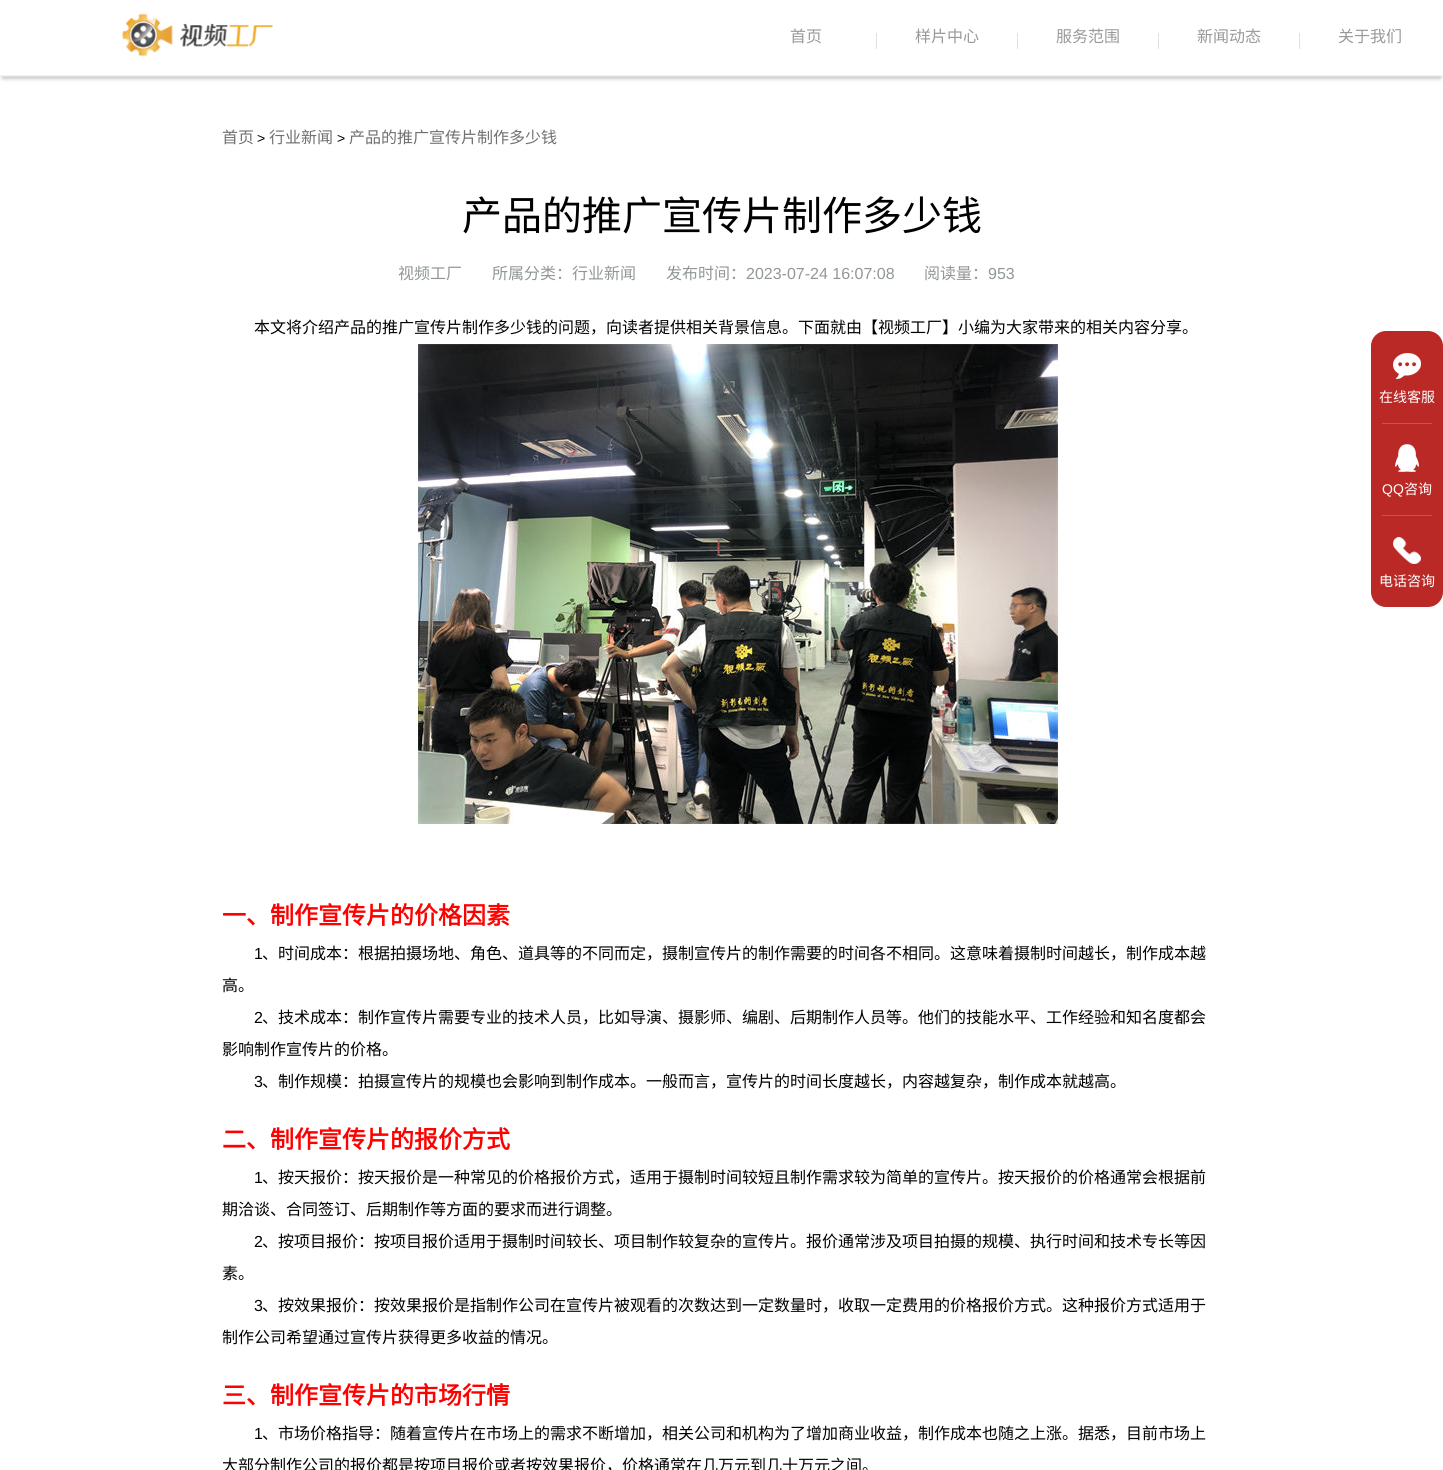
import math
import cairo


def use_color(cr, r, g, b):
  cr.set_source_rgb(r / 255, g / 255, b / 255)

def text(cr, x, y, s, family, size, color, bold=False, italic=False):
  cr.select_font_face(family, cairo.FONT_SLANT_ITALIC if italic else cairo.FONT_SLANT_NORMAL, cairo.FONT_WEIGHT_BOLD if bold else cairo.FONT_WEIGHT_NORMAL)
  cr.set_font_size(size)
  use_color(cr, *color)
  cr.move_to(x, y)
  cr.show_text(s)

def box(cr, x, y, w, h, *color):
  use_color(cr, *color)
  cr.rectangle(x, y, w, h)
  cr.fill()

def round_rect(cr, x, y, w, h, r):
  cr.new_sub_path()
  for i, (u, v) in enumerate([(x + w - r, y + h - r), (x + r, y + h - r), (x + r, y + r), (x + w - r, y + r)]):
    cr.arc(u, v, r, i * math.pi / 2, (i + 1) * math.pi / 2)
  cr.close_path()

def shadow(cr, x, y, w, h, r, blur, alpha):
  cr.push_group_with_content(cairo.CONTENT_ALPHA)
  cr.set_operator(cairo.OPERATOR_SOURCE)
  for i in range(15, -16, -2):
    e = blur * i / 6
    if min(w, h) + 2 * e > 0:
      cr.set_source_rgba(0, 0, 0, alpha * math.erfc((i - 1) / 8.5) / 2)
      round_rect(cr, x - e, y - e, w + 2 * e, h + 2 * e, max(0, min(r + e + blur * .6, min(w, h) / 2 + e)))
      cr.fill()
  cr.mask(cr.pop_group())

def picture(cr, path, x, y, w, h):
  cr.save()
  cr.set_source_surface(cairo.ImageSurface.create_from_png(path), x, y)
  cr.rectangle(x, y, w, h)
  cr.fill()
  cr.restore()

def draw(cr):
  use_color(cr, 255, 255, 255)
  cr.paint()
  use_color(cr, 208, 208, 208)
  shadow(cr, 3, 7, 1437, 71, 0, 2, 1)
  shadow(cr, 3, 7, 1437, 71, 0, 2, 1)
  box(cr, 0, 3, 1443, 72, 255, 255, 255)
  box(cr, 0, 76, 1443, 1, 241, 241, 241)
  cr.save()
  cr.rectangle(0, 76, 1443, 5)
  cr.clip()
  use_color(cr, 208, 208, 208)
  shadow(cr, 3, 7, 1437, 70, 0, 2, 1)
  cr.restore()
  box(cr, 0, 75, 1443, 1, 241, 241, 241)
  picture(cr, "img_01.png", 122, 13, 151, 44)
  box(cr, 876, 33, 1, 16, 224, 224, 224)
  box(cr, 1017, 33, 1, 16, 224, 224, 224)
  box(cr, 1158, 33, 1, 16, 224, 224, 224)
  box(cr, 1299, 33, 1, 16, 224, 224, 224)
  picture(cr, "img_02.png", 418, 344, 640, 480)
  use_color(cr, 186, 41, 38)
  round_rect(cr, 1371, 331, 72, 276, 15)
  cr.fill()
  picture(cr, "img_03.png", 1393, 353, 28, 26)
  box(cr, 1382, 423, 50, 1, 200, 84, 81)
  picture(cr, "img_04.png", 1395, 444, 24, 28)
  box(cr, 1382, 515, 50, 1, 200, 84, 81)
  picture(cr, "img_05.png", 1393, 537, 28, 27)
  text(cr, 790, 42, "首页", "Noto Sans CJK SC", 16, (153, 153, 153))
  text(cr, 915, 42, "样片中心", "Noto Sans CJK SC", 16, (153, 153, 153))
  text(cr, 1056, 42, "服务范围", "Noto Sans CJK SC", 16, (153, 153, 153))
  text(cr, 1197, 42, "新闻动态", "Noto Sans CJK SC", 16, (153, 153, 153))
  text(cr, 1338, 42, "关于我们", "Noto Sans CJK SC", 16, (153, 153, 153))
  text(cr, 222, 143, "首页", "Noto Sans CJK SC", 16, (113, 112, 113))
  text(cr, 257, 143, ">", "Liberation Sans", 14, (0, 0, 0))
  text(cr, 269, 143, "行业新闻", "Noto Sans CJK SC", 16, (113, 112, 113))
  text(cr, 337, 143, ">", "Liberation Sans", 14, (0, 0, 0))
  text(cr, 349, 143, "产品的推广宣传片制作多少钱", "Noto Sans CJK SC", 16, (113, 112, 113))
  text(cr, 462, 230, "产品的推广宣传片制作多少钱", "Noto Sans CJK SC", 40, (0, 0, 0))
  text(cr, 398, 279, "视频工厂", "Noto Sans CJK SC", 16, (145, 151, 151))
  text(cr, 492, 279, "所属分类：行业新闻", "Noto Sans CJK SC", 16, (145, 151, 151))
  text(cr, 666, 279, "发布时间：", "Noto Sans CJK SC", 16, (145, 151, 151))
  text(cr, 746, 279, "2023-07-24 16:07:08", "Liberation Sans", 16, (145, 151, 151))
  text(cr, 924, 279, "阅读量：", "Noto Sans CJK SC", 16, (145, 151, 151))
  text(cr, 988, 279, "953", "Liberation Sans", 16, (145, 151, 151))
  text(cr, 254, 333, "本文将介绍产品的推广宣传片制作多少钱的问题，向读者提供相关背景信息。下面就由【视频工厂】小编为大家带来的相关内容分享。", "Noto Sans CJK SC", 16, (0, 0, 0))
  text(cr, 222, 924, "一、制作宣传片的价格因素", "Noto Sans CJK SC", 24, (255, 0, 0), bold=True)
  text(cr, 254, 959, "1", "Liberation Sans", 16, (0, 0, 0))
  text(cr, 262, 959, "、时间成本：根据拍摄场地、角色、道具等的不同而定，摄制宣传片的制作需要的时间各不相同。这意味着摄制时间越长，制作成本越", "Noto Sans CJK SC", 16, (0, 0, 0))
  text(cr, 222, 991, "高。", "Noto Sans CJK SC", 16, (0, 0, 0))
  text(cr, 254, 1023, "2", "Liberation Sans", 16, (0, 0, 0))
  text(cr, 262, 1023, "、技术成本：制作宣传片需要专业的技术人员，比如导演、摄影师、编剧、后期制作人员等。他们的技能水平、工作经验和知名度都会", "Noto Sans CJK SC", 16, (0, 0, 0))
  text(cr, 222, 1055, "影响制作宣传片的价格。", "Noto Sans CJK SC", 16, (0, 0, 0))
  text(cr, 254, 1087, "3", "Liberation Sans", 16, (0, 0, 0))
  text(cr, 262, 1087, "、制作规模：拍摄宣传片的规模也会影响到制作成本。一般而言，宣传片的时间长度越长，内容越复杂，制作成本就越高。", "Noto Sans CJK SC", 16, (0, 0, 0))
  text(cr, 222, 1148, "二、制作宣传片的报价方式", "Noto Sans CJK SC", 24, (255, 0, 0), bold=True)
  text(cr, 254, 1183, "1", "Liberation Sans", 16, (0, 0, 0))
  text(cr, 262, 1183, "、按天报价：按天报价是一种常见的价格报价方式，适用于摄制时间较短且制作需求较为简单的宣传片。按天报价的价格通常会根据前", "Noto Sans CJK SC", 16, (0, 0, 0))
  text(cr, 222, 1215, "期洽谈、合同签订、后期制作等方面的要求而进行调整。", "Noto Sans CJK SC", 16, (0, 0, 0))
  text(cr, 254, 1247, "2", "Liberation Sans", 16, (0, 0, 0))
  text(cr, 262, 1247, "、按项目报价：按项目报价适用于摄制时间较长、项目制作较复杂的宣传片。报价通常涉及项目拍摄的规模、执行时间和技术专长等因", "Noto Sans CJK SC", 16, (0, 0, 0))
  text(cr, 222, 1279, "素。", "Noto Sans CJK SC", 16, (0, 0, 0))
  text(cr, 254, 1311, "3", "Liberation Sans", 16, (0, 0, 0))
  text(cr, 262, 1311, "、按效果报价：按效果报价是指制作公司在宣传片被观看的次数达到一定数量时，收取一定费用的价格报价方式。这种报价方式适用于", "Noto Sans CJK SC", 16, (0, 0, 0))
  text(cr, 222, 1343, "制作公司希望通过宣传片获得更多收益的情况。", "Noto Sans CJK SC", 16, (0, 0, 0))
  text(cr, 222, 1404, "三、制作宣传片的市场行情", "Noto Sans CJK SC", 24, (255, 0, 0), bold=True)
  text(cr, 254, 1439, "1", "Liberation Sans", 16, (0, 0, 0))
  text(cr, 262, 1439, "、市场价格指导：随着宣传片在市场上的需求不断增加，相关公司和机构为了增加商业收益，制作成本也随之上涨。据悉，目前市场上", "Noto Sans CJK SC", 16, (0, 0, 0))
  text(cr, 222, 1471, "大部分制作公司的报价都是按项目报价或者按效果报价，价格通常在几万元到几十万元之间。", "Noto Sans CJK SC", 16, (0, 0, 0))
  text(cr, 1379, 402, "在线客服", "Noto Sans CJK SC", 14, (255, 255, 255))
  text(cr, 1382, 494, "QQ", "Liberation Sans", 14, (255, 255, 255))
  text(cr, 1404, 494, "咨询", "Noto Sans CJK SC", 14, (255, 255, 255))
  text(cr, 1379, 586, "电话咨询", "Noto Sans CJK SC", 14, (255, 255, 255))


surface = cairo.ImageSurface(cairo.FORMAT_RGB24, 1443, 1470)
cr = cairo.Context(surface)
options = cairo.FontOptions()
options.set_hint_metrics(cairo.HINT_METRICS_OFF)
options.set_hint_style(cairo.HINT_STYLE_NONE)
cr.set_font_options(options)
cr.set_miter_limit(4)
draw(cr)
surface.write_to_png("out.png")
